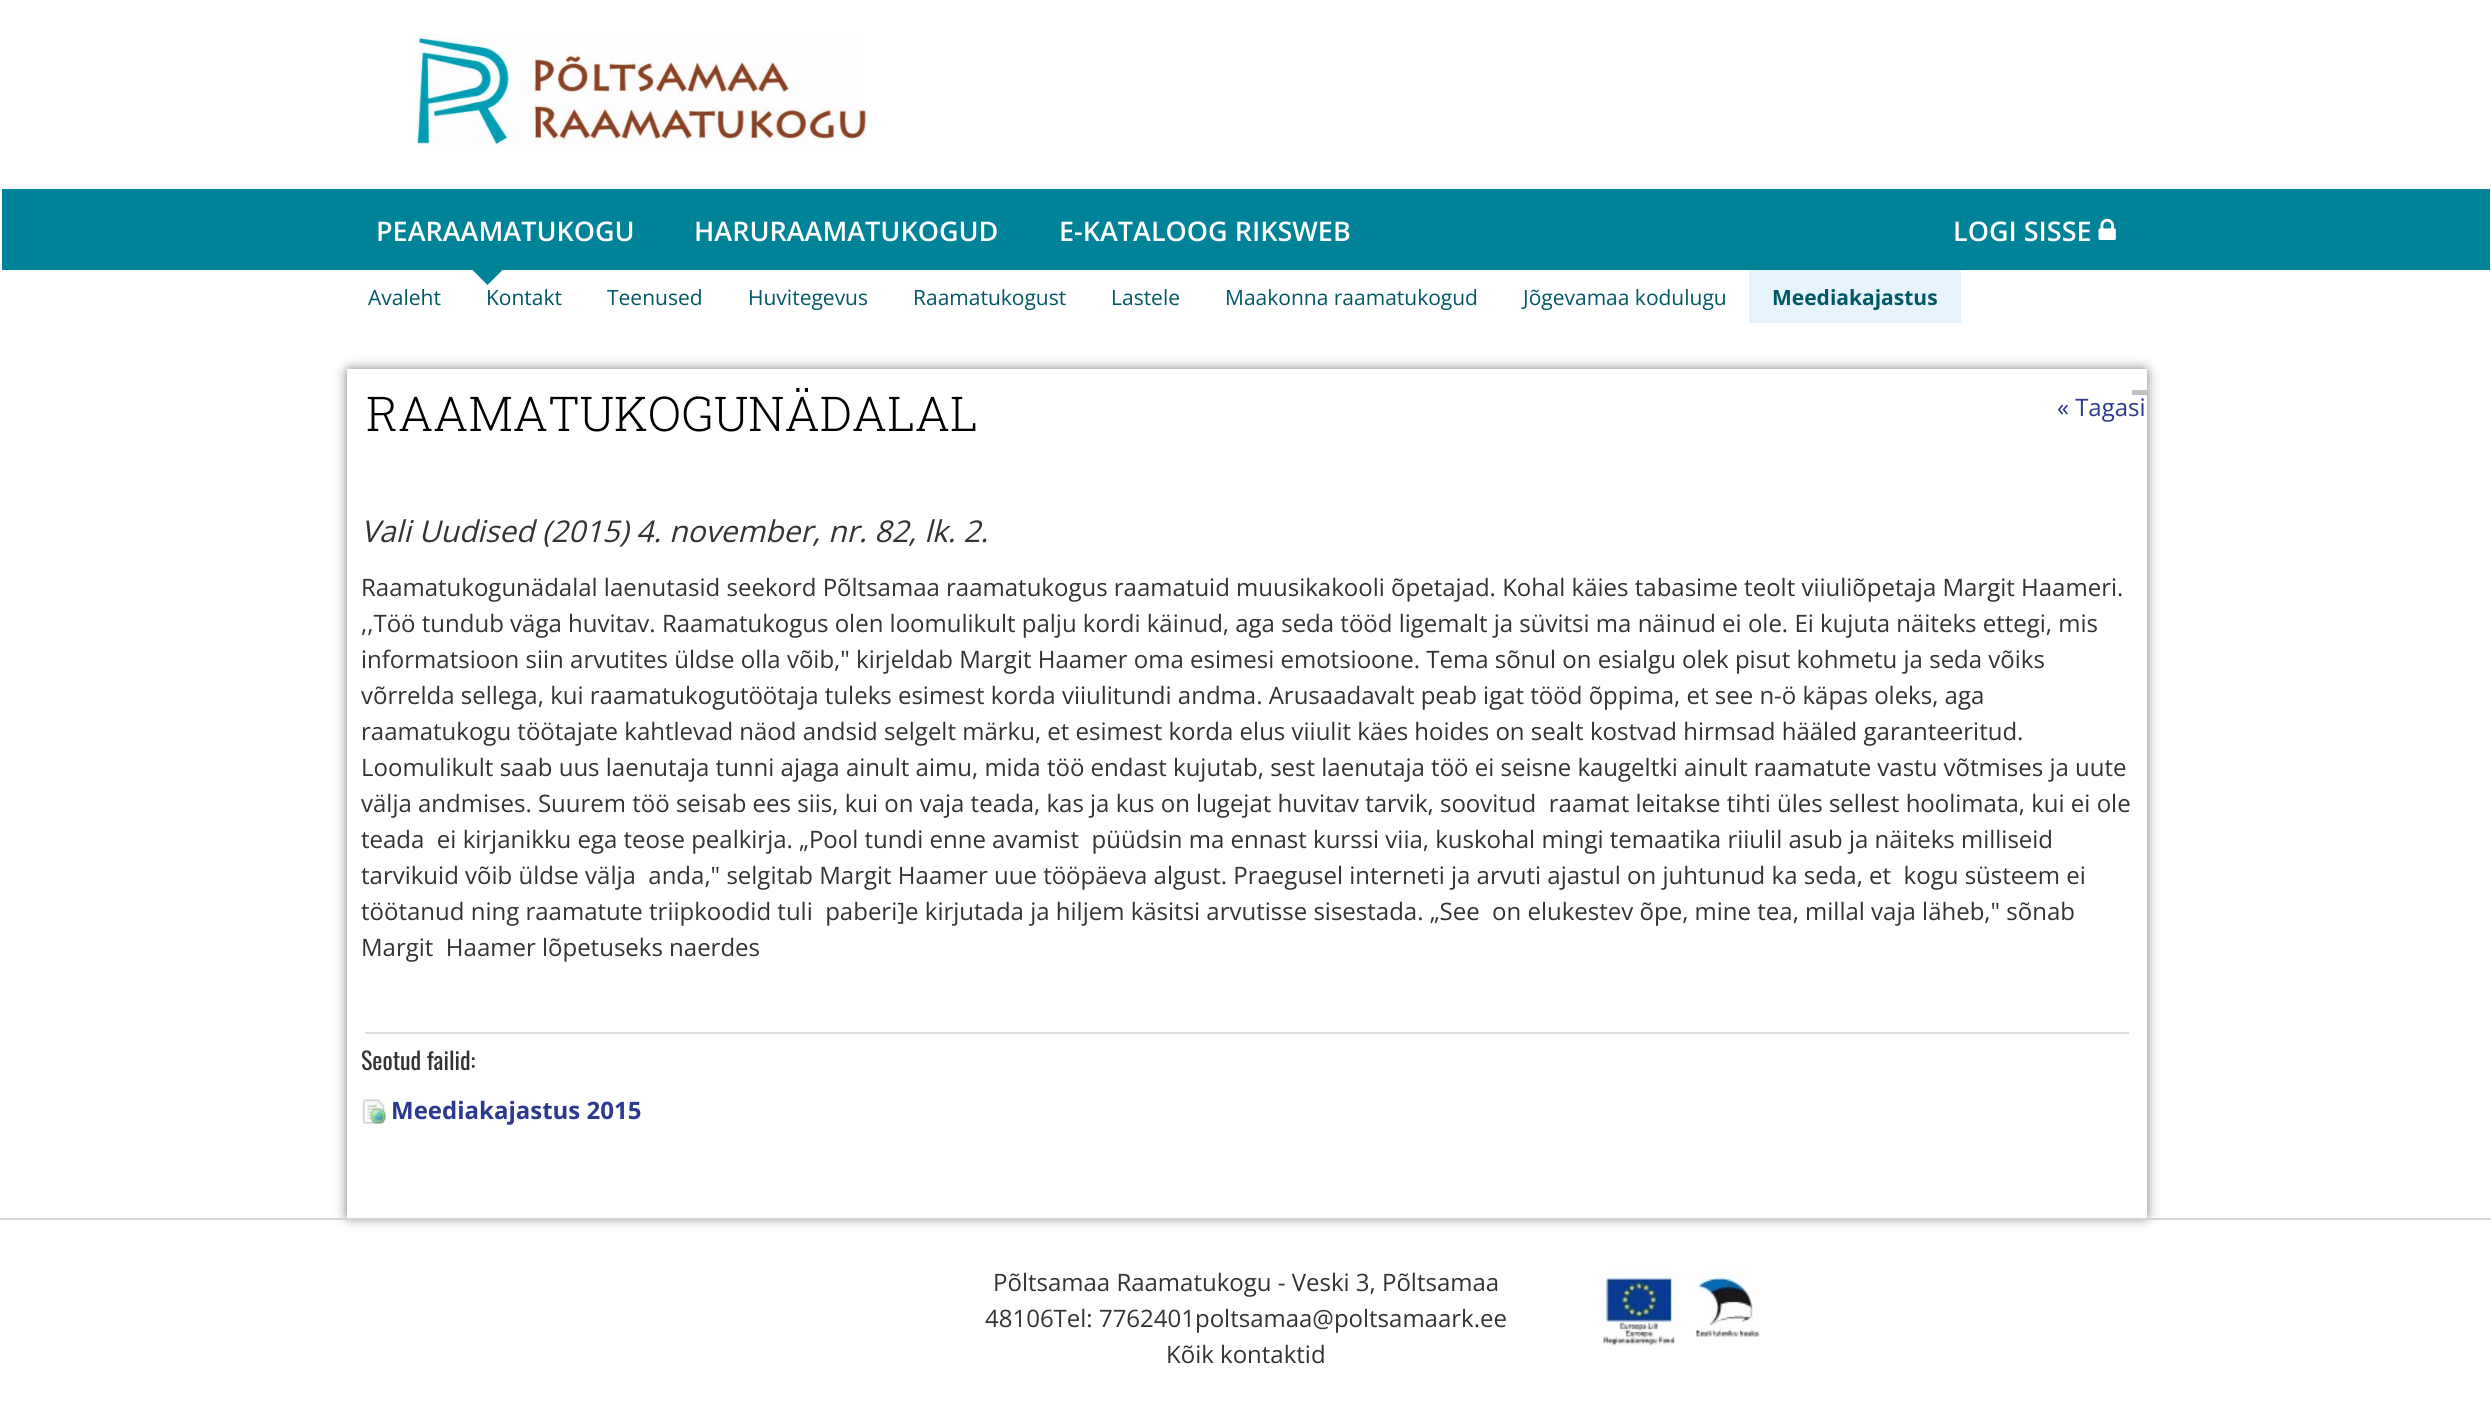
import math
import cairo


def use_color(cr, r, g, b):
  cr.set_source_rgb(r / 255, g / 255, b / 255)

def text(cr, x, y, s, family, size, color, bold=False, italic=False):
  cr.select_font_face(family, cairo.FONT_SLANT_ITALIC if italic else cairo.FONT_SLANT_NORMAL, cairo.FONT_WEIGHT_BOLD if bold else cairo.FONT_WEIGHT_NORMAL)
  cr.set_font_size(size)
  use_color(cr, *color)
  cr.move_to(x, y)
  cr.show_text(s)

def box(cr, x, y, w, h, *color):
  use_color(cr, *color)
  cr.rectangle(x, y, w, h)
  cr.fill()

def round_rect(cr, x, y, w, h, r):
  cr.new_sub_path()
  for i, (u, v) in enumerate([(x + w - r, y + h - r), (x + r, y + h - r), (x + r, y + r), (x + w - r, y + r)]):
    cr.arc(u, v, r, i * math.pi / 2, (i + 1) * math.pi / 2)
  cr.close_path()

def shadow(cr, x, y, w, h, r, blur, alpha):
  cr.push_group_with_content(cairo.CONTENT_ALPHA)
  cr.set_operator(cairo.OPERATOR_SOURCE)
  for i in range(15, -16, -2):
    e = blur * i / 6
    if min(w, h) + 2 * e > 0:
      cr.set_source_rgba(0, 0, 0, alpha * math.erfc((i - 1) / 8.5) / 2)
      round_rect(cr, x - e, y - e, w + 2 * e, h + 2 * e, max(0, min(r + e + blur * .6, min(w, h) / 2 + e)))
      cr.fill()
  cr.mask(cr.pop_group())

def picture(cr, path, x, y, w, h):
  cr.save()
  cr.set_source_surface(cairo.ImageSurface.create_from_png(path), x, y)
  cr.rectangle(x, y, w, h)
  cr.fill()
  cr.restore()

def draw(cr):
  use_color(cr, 255, 255, 255)
  cr.paint()
  picture(cr, "img_01.png", 416, 34, 451, 116)
  box(cr, 2, 189, 2488, 81, 0, 130, 153)
  cr.new_path()
  cr.move_to(472.5, 270)
  cr.line_to(502.5, 270)
  cr.line_to(487.5, 285)
  cr.close_path()
  cr.fill()
  picture(cr, "img_02.png", 2098, 218, 18, 22)
  box(cr, 1749, 270, 212, 53, 231, 243, 250)
  use_color(cr, 51, 51, 51)
  shadow(cr, 350, 372, 1794, 843, 0, 7, 1)
  box(cr, 347, 369, 1800, 849, 255, 255, 255)
  box(cr, 365, 1032, 1764, 2, 222, 222, 222)
  picture(cr, "img_03.png", 362, 1099, 24, 25)
  box(cr, 2132, 390, 15, 5, 194, 194, 194)
  box(cr, 0, 1218, 2491, 2, 209, 211, 212)
  picture(cr, "img_04.png", 1603, 1264, 157, 82)
  text(cr, 376, 241, "PEARAAMATUKOGU", "Open Sans SemiBold", 27, (255, 255, 255))
  text(cr, 694, 241, "HARURAAMATUKOGUD", "Open Sans SemiBold", 27, (255, 255, 255))
  text(cr, 1059, 241, "E-KATALOOG RIKSWEB", "Open Sans SemiBold", 27, (255, 255, 255))
  text(cr, 1953, 241, "LOGI SISSE", "Open Sans SemiBold", 27, (255, 255, 255))
  text(cr, 368, 305, "Avaleht", "Open Sans", 21, (0, 87, 102))
  text(cr, 486, 305, "Kontakt", "Open Sans", 21, (0, 87, 102))
  text(cr, 607, 305, "Teenused", "Open Sans", 21, (0, 87, 102))
  text(cr, 748, 305, "Huvitegevus", "Open Sans", 21, (0, 87, 102))
  text(cr, 913, 305, "Raamatukogust", "Open Sans", 21, (0, 87, 102))
  text(cr, 1111, 305, "Lastele", "Open Sans", 21, (0, 87, 102))
  text(cr, 1225, 305, "Maakonna raamatukogud", "Open Sans", 21, (0, 87, 102))
  text(cr, 1523, 305, "Jõgevamaa kodulugu", "Open Sans", 21, (0, 87, 102))
  text(cr, 1772, 305, "Meediakajastus", "Open Sans", 21, (0, 87, 102), bold=True)
  text(cr, 366, 431, "RAAMATUKOGUNÄDALAL", "Roboto Slab Light", 48, (0, 0, 0))
  text(cr, 2057, 416, "« Tagasi", "Open Sans", 24, (43, 57, 144))
  text(cr, 361, 542, "Vali Uudised (2015) 4. november, nr. 82, lk. 2.", "Open Sans", 30, (51, 51, 51), italic=True)
  text(cr, 361, 596, "Raamatukogunädalal laenutasid seekord Põltsamaa raamatukogus raamatuid muusikakooli õpetajad. Kohal käies tabasime teolt viiuliõpetaja Margit Haameri.", "Open Sans", 24, (51, 51, 51))
  text(cr, 361, 632, ",,Töö tundub väga huvitav. Raamatukogus olen loomulikult palju kordi käinud, aga seda tööd ligemalt ja süvitsi ma näinud ei ole. Ei kujuta näiteks ettegi, mis", "Open Sans", 24, (51, 51, 51))
  text(cr, 361, 668, "informatsioon siin arvutites üldse olla võib,\" kirjeldab Margit Haamer oma esimesi emotsioone. Tema sõnul on esialgu olek pisut kohmetu ja seda võiks", "Open Sans", 24, (51, 51, 51))
  text(cr, 361, 704, "võrrelda sellega, kui raamatukogutöötaja tuleks esimest korda viiulitundi andma. Arusaadavalt peab igat tööd õppima, et see n-ö käpas oleks, aga", "Open Sans", 24, (51, 51, 51))
  text(cr, 361, 740, "raamatukogu töötajate kahtlevad näod andsid selgelt märku, et esimest korda elus viiulit käes hoides on sealt kostvad hirmsad hääled garanteeritud.", "Open Sans", 24, (51, 51, 51))
  text(cr, 361, 776, "Loomulikult saab uus laenutaja tunni ajaga ainult aimu, mida töö endast kujutab, sest laenutaja töö ei seisne kaugeltki ainult raamatute vastu võtmises ja uute", "Open Sans", 24, (51, 51, 51))
  text(cr, 361, 812, "välja andmises. Suurem töö seisab ees siis, kui on vaja teada, kas ja kus on lugejat huvitav tarvik, soovitud  raamat leitakse tihti üles sellest hoolimata, kui ei ole", "Open Sans", 24, (51, 51, 51))
  text(cr, 361, 848, "teada  ei kirjanikku ega teose pealkirja. „Pool tundi enne avamist  püüdsin ma ennast kurssi viia, kuskohal mingi temaatika riiulil asub ja näiteks milliseid", "Open Sans", 24, (51, 51, 51))
  text(cr, 361, 884, "tarvikuid võib üldse välja  anda,\" selgitab Margit Haamer uue tööpäeva algust. Praegusel interneti ja arvuti ajastul on juhtunud ka seda, et  kogu süsteem ei", "Open Sans", 24, (51, 51, 51))
  text(cr, 361, 920, "töötanud ning raamatute triipkoodid tuli  paberi]e kirjutada ja hiljem käsitsi arvutisse sisestada. „See  on elukestev õpe, mine tea, millal vaja läheb,\" sõnab", "Open Sans", 24, (51, 51, 51))
  text(cr, 361, 956, "Margit  Haamer lõpetuseks naerdes", "Open Sans", 24, (51, 51, 51))
  text(cr, 361, 1070, "Seotud failid:", "Oswald", 24, (51, 51, 51))
  text(cr, 391, 1119, "Meediakajastus 2015", "Open Sans", 24, (43, 57, 144), bold=True)
  text(cr, 993, 1291, "Põltsamaa Raamatukogu - Veski 3, Põltsamaa", "Open Sans", 24, (51, 51, 51))
  text(cr, 985, 1327, "48106Tel: 7762401poltsamaa@poltsamaark.ee", "Open Sans", 24, (51, 51, 51))
  text(cr, 1166, 1363, "Kõik kontaktid", "Open Sans", 24, (51, 51, 51))


surface = cairo.ImageSurface(cairo.FORMAT_RGB24, 2491, 1417)
cr = cairo.Context(surface)
options = cairo.FontOptions()
options.set_hint_metrics(cairo.HINT_METRICS_OFF)
options.set_hint_style(cairo.HINT_STYLE_NONE)
cr.set_font_options(options)
cr.set_miter_limit(4)
draw(cr)
surface.write_to_png("out.png")
